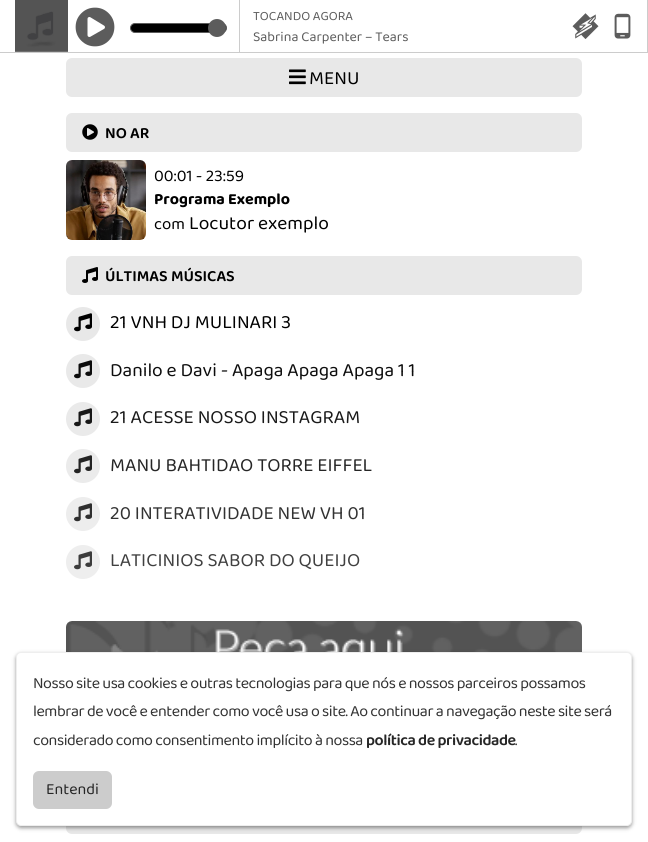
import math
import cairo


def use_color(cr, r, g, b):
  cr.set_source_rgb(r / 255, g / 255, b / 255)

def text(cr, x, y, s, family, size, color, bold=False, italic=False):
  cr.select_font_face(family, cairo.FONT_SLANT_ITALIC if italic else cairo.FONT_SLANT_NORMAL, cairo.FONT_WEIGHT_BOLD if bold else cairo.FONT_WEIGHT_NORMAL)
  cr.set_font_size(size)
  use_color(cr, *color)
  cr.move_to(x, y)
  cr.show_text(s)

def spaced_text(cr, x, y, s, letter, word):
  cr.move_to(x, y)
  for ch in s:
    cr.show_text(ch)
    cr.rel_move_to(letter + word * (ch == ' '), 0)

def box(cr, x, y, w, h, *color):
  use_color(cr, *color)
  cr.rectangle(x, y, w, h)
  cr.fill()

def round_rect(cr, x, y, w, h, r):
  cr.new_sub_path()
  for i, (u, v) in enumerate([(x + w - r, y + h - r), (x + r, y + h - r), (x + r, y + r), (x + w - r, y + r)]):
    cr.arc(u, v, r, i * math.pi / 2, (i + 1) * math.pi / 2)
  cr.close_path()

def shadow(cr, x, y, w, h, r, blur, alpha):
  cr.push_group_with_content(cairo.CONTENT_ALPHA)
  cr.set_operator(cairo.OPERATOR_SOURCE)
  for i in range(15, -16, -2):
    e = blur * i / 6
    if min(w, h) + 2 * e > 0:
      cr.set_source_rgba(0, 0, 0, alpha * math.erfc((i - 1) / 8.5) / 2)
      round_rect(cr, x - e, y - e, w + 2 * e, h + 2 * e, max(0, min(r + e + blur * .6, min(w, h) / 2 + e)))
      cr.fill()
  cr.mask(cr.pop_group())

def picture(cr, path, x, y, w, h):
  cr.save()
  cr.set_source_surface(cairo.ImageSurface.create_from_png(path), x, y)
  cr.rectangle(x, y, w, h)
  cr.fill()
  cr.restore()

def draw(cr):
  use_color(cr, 255, 255, 255)
  cr.paint()
  box(cr, 0, 52, 648, 1, 204, 204, 204)
  box(cr, 647, 0, 1, 52, 204, 204, 204)
  picture(cr, "img_01.png", 15, 0, 53, 52)
  box(cr, 239, 0, 1, 52, 204, 204, 204)
  picture(cr, "img_02.png", 75, 7, 40, 40)
  use_color(cr, 0, 0, 0)
  round_rect(cr, 130.5, 23.5, 96, 9, 4.5)
  cr.fill_preserve()
  use_color(cr, 92, 92, 92)
  cr.set_line_width(1)
  cr.stroke()
  cr.arc(217, 28, 9, 0, 2 * math.pi)
  cr.fill()
  picture(cr, "img_03.png", 572, 13, 27, 26)
  picture(cr, "img_04.png", 614, 13, 17, 26)
  use_color(cr, 232, 232, 232)
  round_rect(cr, 66, 58, 516, 39, 6)
  cr.fill()
  picture(cr, "img_05.png", 289, 69, 17, 16)
  round_rect(cr, 66, 113, 516, 39, 6)
  cr.fill()
  picture(cr, "img_06.png", 82, 124, 16, 16)
  picture(cr, "img_07.png", 66, 160, 80, 80)
  round_rect(cr, 66, 256, 516, 39, 6)
  cr.fill()
  picture(cr, "img_08.png", 82, 267, 16, 16)
  cr.arc(83, 324, 17, 0, 2 * math.pi)
  cr.fill()
  picture(cr, "img_09.png", 74, 313, 18, 19)
  use_color(cr, 233, 233, 233)
  cr.arc(83, 371, 17, 0, 2 * math.pi)
  cr.fill()
  picture(cr, "img_10.png", 74, 360, 18, 19)
  use_color(cr, 234, 234, 234)
  cr.arc(83, 419, 17, 0, 2 * math.pi)
  cr.fill()
  picture(cr, "img_11.png", 74, 408, 18, 19)
  use_color(cr, 235, 235, 235)
  cr.arc(83, 466, 17, 0, 2 * math.pi)
  cr.fill()
  picture(cr, "img_12.png", 74, 455, 18, 19)
  use_color(cr, 237, 237, 237)
  cr.arc(83, 514, 17, 0, 2 * math.pi)
  cr.fill()
  picture(cr, "img_13.png", 74, 503, 18, 19)
  use_color(cr, 238, 238, 238)
  cr.arc(83, 562, 17, 0, 2 * math.pi)
  cr.fill()
  picture(cr, "img_14.png", 74, 551, 18, 19)
  picture(cr, "img_15.png", 66, 621, 516, 31)
  use_color(cr, 232, 232, 232)
  round_rect(cr, 66, 795, 516, 39, 6)
  cr.fill()
  use_color(cr, 0, 0, 0)
  shadow(cr, 16, 654, 616, 174, 5, 2, 0.4)
  use_color(cr, 255, 255, 255)
  round_rect(cr, 16.5, 652.5, 615, 173, 4.5)
  cr.fill_preserve()
  use_color(cr, 238, 238, 238)
  cr.stroke()
  use_color(cr, 204, 204, 204)
  round_rect(cr, 33, 771, 79, 38, 6)
  cr.fill()
  text(cr, 253, 20, "TOCANDO AGORA", "Baloo 2", 13, (92, 92, 92))
  text(cr, 253, 41, "Sabrina Carpenter – Tears", "Baloo 2", 14, (92, 92, 92))
  text(cr, 309, 84, "MENU", "Baloo 2", 19.25, (0, 0, 0))
  text(cr, 105, 138, "NO AR", "Baloo 2 SemiBold", 16, (0, 0, 0))
  text(cr, 154, 181, "00:01 - 23:59", "Baloo 2", 16.75, (0, 0, 0))
  text(cr, 154, 204, "Programa Exemplo", "Baloo 2", 16, (0, 0, 0), bold=True)
  text(cr, 154, 229, "com", "Baloo 2", 16.75, (0, 0, 0))
  text(cr, 189, 229, "Locutor exemplo", "Baloo 2", 19.25, (0, 0, 0))
  text(cr, 105, 281, "ÚLTIMAS MÚSICAS", "Baloo 2 SemiBold", 16, (0, 0, 0))
  text(cr, 110, 328, "21 VNH DJ MULINARI 3", "Baloo 2", 19.25, (0, 0, 0))
  text(cr, 110, 376, "Danilo e Davi - Apaga Apaga Apaga 1 1", "Baloo 2", 19.25, (13, 13, 13))
  text(cr, 110, 423, "21 ACESSE NOSSO INSTAGRAM", "Baloo 2", 19.25, (26, 26, 26))
  text(cr, 110, 471, "MANU BAHTIDAO TORRE EIFFEL", "Baloo 2", 19.25, (38, 38, 38))
  text(cr, 110, 519, "20 INTERATIVIDADE NEW VH 01", "Baloo 2", 19.25, (51, 51, 51))
  text(cr, 110, 566, "LATICINIOS SABOR DO QUEIJO", "Baloo 2", 19.25, (64, 64, 64))
  cr.set_font_size(16)
  use_color(cr, 51, 51, 51)
  spaced_text(cr, 33, 688, "Nosso site usa cookies e outras tecnologias para que nós e nossos parceiros possamos", -0.45, 0)
  spaced_text(cr, 33, 716, "lembrar de você e entender como você usa o site. Ao continuar a navegação neste site será", -0.45, 0)
  spaced_text(cr, 33, 745, "considerado como consentimento implícito à nossa", -0.45, 0)
  cr.select_font_face("Baloo 2 SemiBold")
  use_color(cr, 38, 38, 38)
  spaced_text(cr, 366, 745, "política de privacidade", -0.45, 0)
  cr.select_font_face("Baloo 2")
  use_color(cr, 51, 51, 51)
  spaced_text(cr, 515, 745, ".", -0.45, 0)
  text(cr, 46, 794, "Entendi", "Baloo 2", 16, (38, 38, 38))


surface = cairo.ImageSurface(cairo.FORMAT_RGB24, 648, 842)
cr = cairo.Context(surface)
options = cairo.FontOptions()
options.set_hint_metrics(cairo.HINT_METRICS_OFF)
options.set_hint_style(cairo.HINT_STYLE_NONE)
cr.set_font_options(options)
cr.set_miter_limit(4)
draw(cr)
surface.write_to_png("out.png")
